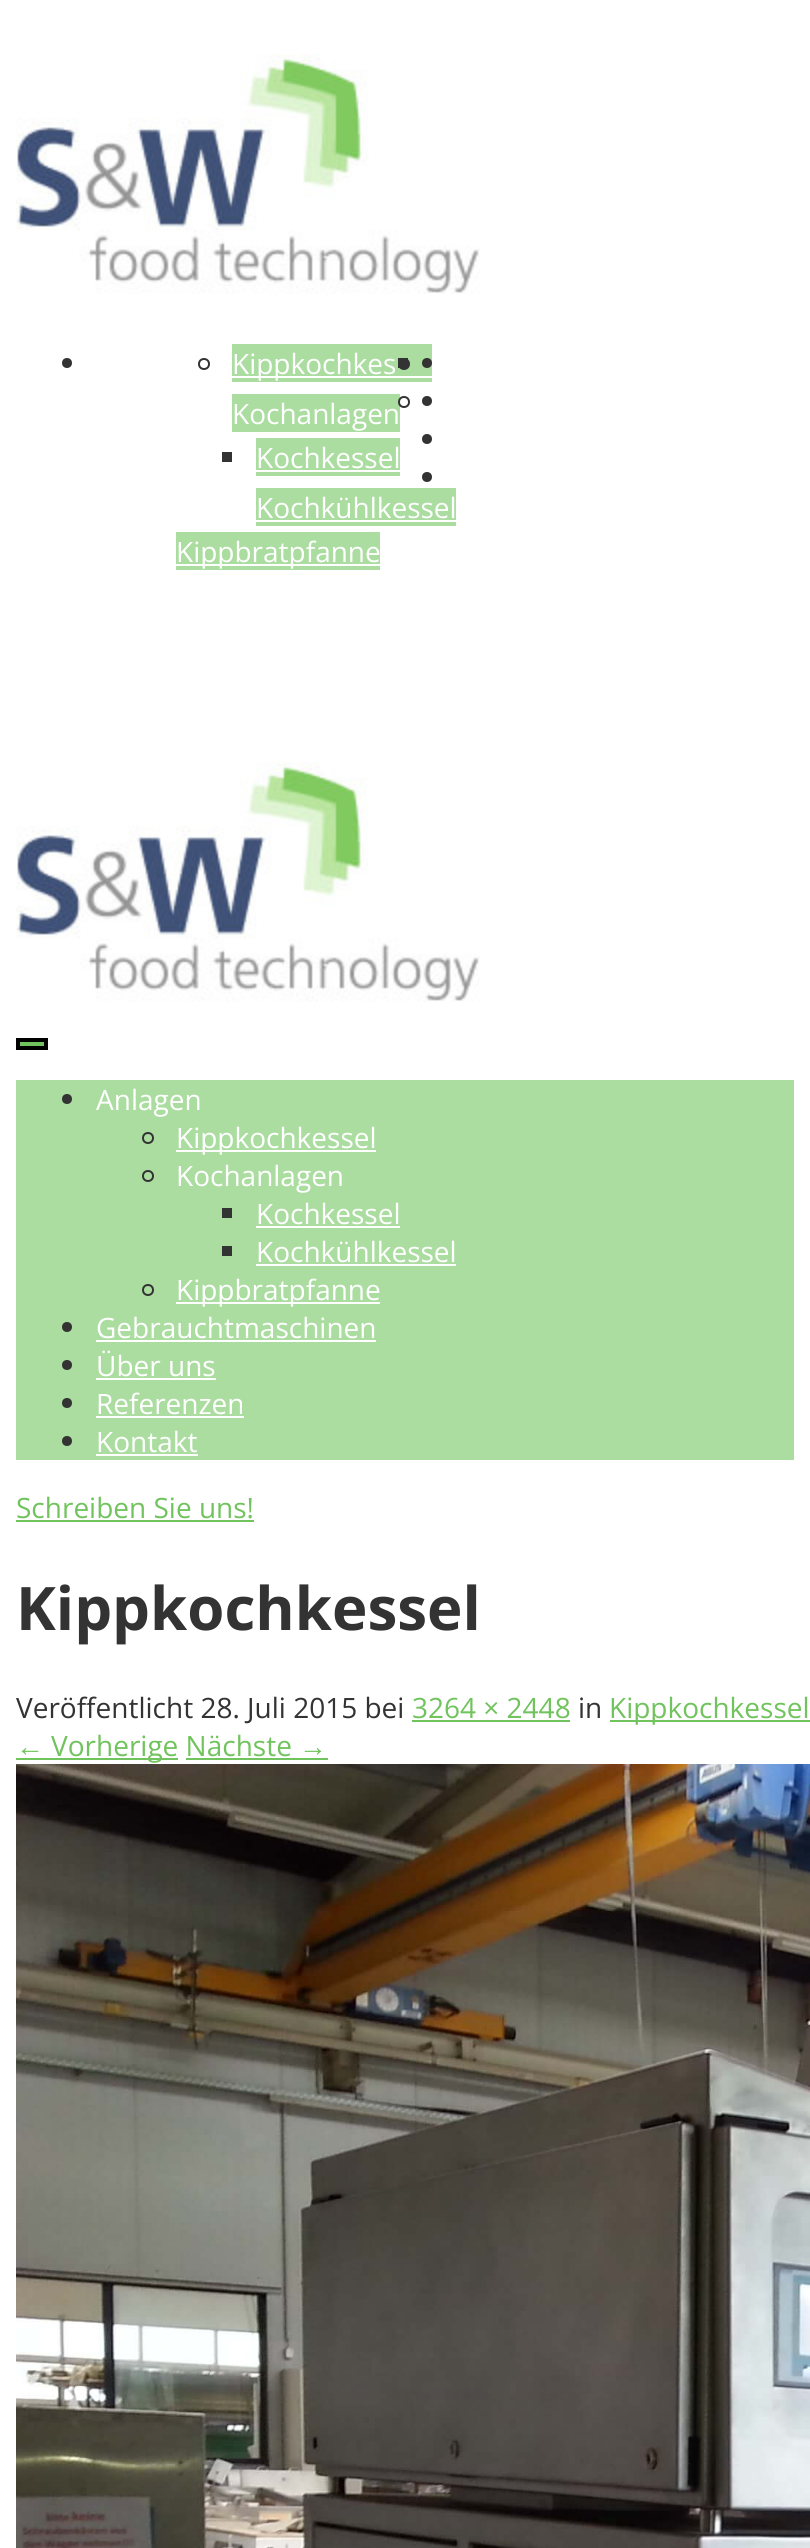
import math
import cairo


def use_color(cr, r, g, b):
  cr.set_source_rgb(r / 255, g / 255, b / 255)

def text(cr, x, y, s, family, size, color, bold=False, italic=False):
  cr.select_font_face(family, cairo.FONT_SLANT_ITALIC if italic else cairo.FONT_SLANT_NORMAL, cairo.FONT_WEIGHT_BOLD if bold else cairo.FONT_WEIGHT_NORMAL)
  cr.set_font_size(size)
  use_color(cr, *color)
  cr.move_to(x, y)
  cr.show_text(s)

def box(cr, x, y, w, h, *color):
  use_color(cr, *color)
  cr.rectangle(x, y, w, h)
  cr.fill()

def picture(cr, path, x, y, w, h):
  cr.save()
  cr.set_source_surface(cairo.ImageSurface.create_from_png(path), x, y)
  cr.rectangle(x, y, w, h)
  cr.fill()
  cr.restore()

def draw(cr):
  use_color(cr, 255, 255, 255)
  cr.paint()
  picture(cr, "img_01.png", 16, 54, 464, 240)
  use_color(cr, 51, 51, 51)
  cr.arc(67, 363, 5, 0, 2 * math.pi)
  cr.fill()
  cr.arc(204, 364, 5, 0, 2 * math.pi)
  cr.stroke()
  box(cr, 232, 344, 200, 38, 171, 221, 160)
  box(cr, 232, 376, 200, 2, 255, 255, 255)
  cr.arc(404, 364, 5, 0, 2 * math.pi)
  use_color(cr, 51, 51, 51)
  cr.stroke()
  box(cr, 232, 394, 168, 38, 171, 221, 160)
  box(cr, 222, 452, 10, 10, 51, 51, 51)
  box(cr, 256, 438, 144, 38, 171, 221, 160)
  box(cr, 256, 470, 144, 2, 255, 255, 255)
  box(cr, 398, 358, 10, 10, 51, 51, 51)
  box(cr, 256, 488, 200, 38, 171, 221, 160)
  box(cr, 256, 520, 200, 2, 255, 255, 255)
  cr.arc(404, 402, 5, 0, 2 * math.pi)
  use_color(cr, 51, 51, 51)
  cr.stroke()
  box(cr, 176, 532, 204, 38, 171, 221, 160)
  box(cr, 176, 564, 204, 2, 255, 255, 255)
  use_color(cr, 51, 51, 51)
  cr.arc(427, 363, 5, 0, 2 * math.pi)
  cr.fill()
  cr.arc(427, 401, 5, 0, 2 * math.pi)
  cr.fill()
  cr.arc(427, 439, 5, 0, 2 * math.pi)
  cr.fill()
  cr.arc(427, 477, 5, 0, 2 * math.pi)
  cr.fill()
  picture(cr, "img_01.png", 16, 762, 464, 240)
  use_color(cr, 113, 195, 93)
  cr.rectangle(18, 1040, 28, 8)
  cr.fill_preserve()
  use_color(cr, 0, 0, 0)
  cr.set_line_width(4)
  cr.stroke()
  box(cr, 16, 1080, 778, 380, 171, 221, 160)
  use_color(cr, 51, 51, 51)
  cr.arc(67, 1099, 5, 0, 2 * math.pi)
  cr.fill()
  cr.arc(148, 1138, 5, 0, 2 * math.pi)
  cr.set_line_width(2)
  cr.stroke()
  box(cr, 176, 1150, 200, 2, 255, 255, 255)
  cr.arc(148, 1176, 5, 0, 2 * math.pi)
  use_color(cr, 51, 51, 51)
  cr.stroke()
  box(cr, 222, 1208, 10, 10, 51, 51, 51)
  box(cr, 256, 1226, 144, 2, 255, 255, 255)
  box(cr, 222, 1246, 10, 10, 51, 51, 51)
  box(cr, 256, 1264, 200, 2, 255, 255, 255)
  cr.arc(148, 1290, 5, 0, 2 * math.pi)
  use_color(cr, 51, 51, 51)
  cr.stroke()
  box(cr, 176, 1302, 204, 2, 255, 255, 255)
  use_color(cr, 51, 51, 51)
  cr.arc(67, 1327, 5, 0, 2 * math.pi)
  cr.fill()
  box(cr, 96, 1340, 280, 2, 255, 255, 255)
  use_color(cr, 51, 51, 51)
  cr.arc(67, 1365, 5, 0, 2 * math.pi)
  cr.fill()
  box(cr, 96, 1378, 120, 2, 255, 255, 255)
  use_color(cr, 51, 51, 51)
  cr.arc(67, 1403, 5, 0, 2 * math.pi)
  cr.fill()
  box(cr, 96, 1416, 148, 2, 255, 255, 255)
  use_color(cr, 51, 51, 51)
  cr.arc(67, 1441, 5, 0, 2 * math.pi)
  cr.fill()
  box(cr, 96, 1454, 102, 2, 255, 255, 255)
  box(cr, 16, 1520, 238, 2, 113, 195, 93)
  box(cr, 412, 1720, 158, 2, 113, 195, 93)
  box(cr, 610, 1720, 200, 2, 113, 195, 93)
  box(cr, 16, 1758, 162, 2, 113, 195, 93)
  box(cr, 186, 1758, 142, 2, 113, 195, 93)
  picture(cr, "img_02.png", 16, 1764, 794, 784)
  text(cr, 232, 374, "Kippkochkes", "Open Sans", 28, (255, 255, 255))
  text(cr, 232, 424, "Kochanlagen", "Open Sans", 28, (255, 255, 255))
  text(cr, 256, 468, "Kochkessel", "Open Sans", 28, (255, 255, 255))
  text(cr, 256, 518, "Kochkühlkessel", "Open Sans", 28, (255, 255, 255))
  text(cr, 176, 562, "Kippbratpfanne", "Open Sans", 28, (255, 255, 255))
  text(cr, 96, 1110, "Anlagen", "Open Sans", 28, (255, 255, 255))
  text(cr, 176, 1148, "Kippkochkessel", "Open Sans", 28, (255, 255, 255))
  text(cr, 176, 1186, "Kochanlagen", "Open Sans", 28, (255, 255, 255))
  text(cr, 256, 1224, "Kochkessel", "Open Sans", 28, (255, 255, 255))
  text(cr, 256, 1262, "Kochkühlkessel", "Open Sans", 28, (255, 255, 255))
  text(cr, 176, 1300, "Kippbratpfanne", "Open Sans", 28, (255, 255, 255))
  text(cr, 96, 1338, "Gebrauchtmaschinen", "Open Sans", 28, (255, 255, 255))
  text(cr, 96, 1376, "Über uns", "Open Sans", 28, (255, 255, 255))
  text(cr, 96, 1414, "Referenzen", "Open Sans", 28, (255, 255, 255))
  text(cr, 96, 1452, "Kontakt", "Open Sans", 28, (255, 255, 255))
  text(cr, 16, 1518, "Schreiben Sie uns!", "Open Sans", 28, (113, 195, 93))
  text(cr, 16, 1630, "Kippkochkessel", "Open Sans", 60, (51, 51, 51), bold=True)
  text(cr, 16, 1718, "Veröffentlicht 28. Juli 2015 bei", "Open Sans", 28, (51, 51, 51))
  text(cr, 412, 1718, "3264 × 2448", "Open Sans", 28, (113, 195, 93))
  text(cr, 578, 1718, "in", "Open Sans", 28, (51, 51, 51))
  text(cr, 609, 1718, "Kippkochkessel", "Open Sans", 28, (113, 195, 93))
  text(cr, 16, 1756, "←", "Liberation Sans", 28, (113, 195, 93))
  text(cr, 51, 1756, "Vorherige Nächste", "Open Sans", 28, (113, 195, 93))
  text(cr, 299, 1756, "→", "Liberation Sans", 28, (113, 195, 93))


surface = cairo.ImageSurface(cairo.FORMAT_RGB24, 810, 2548)
cr = cairo.Context(surface)
options = cairo.FontOptions()
options.set_hint_metrics(cairo.HINT_METRICS_OFF)
options.set_hint_style(cairo.HINT_STYLE_NONE)
cr.set_font_options(options)
cr.set_miter_limit(4)
draw(cr)
surface.write_to_png("out.png")
